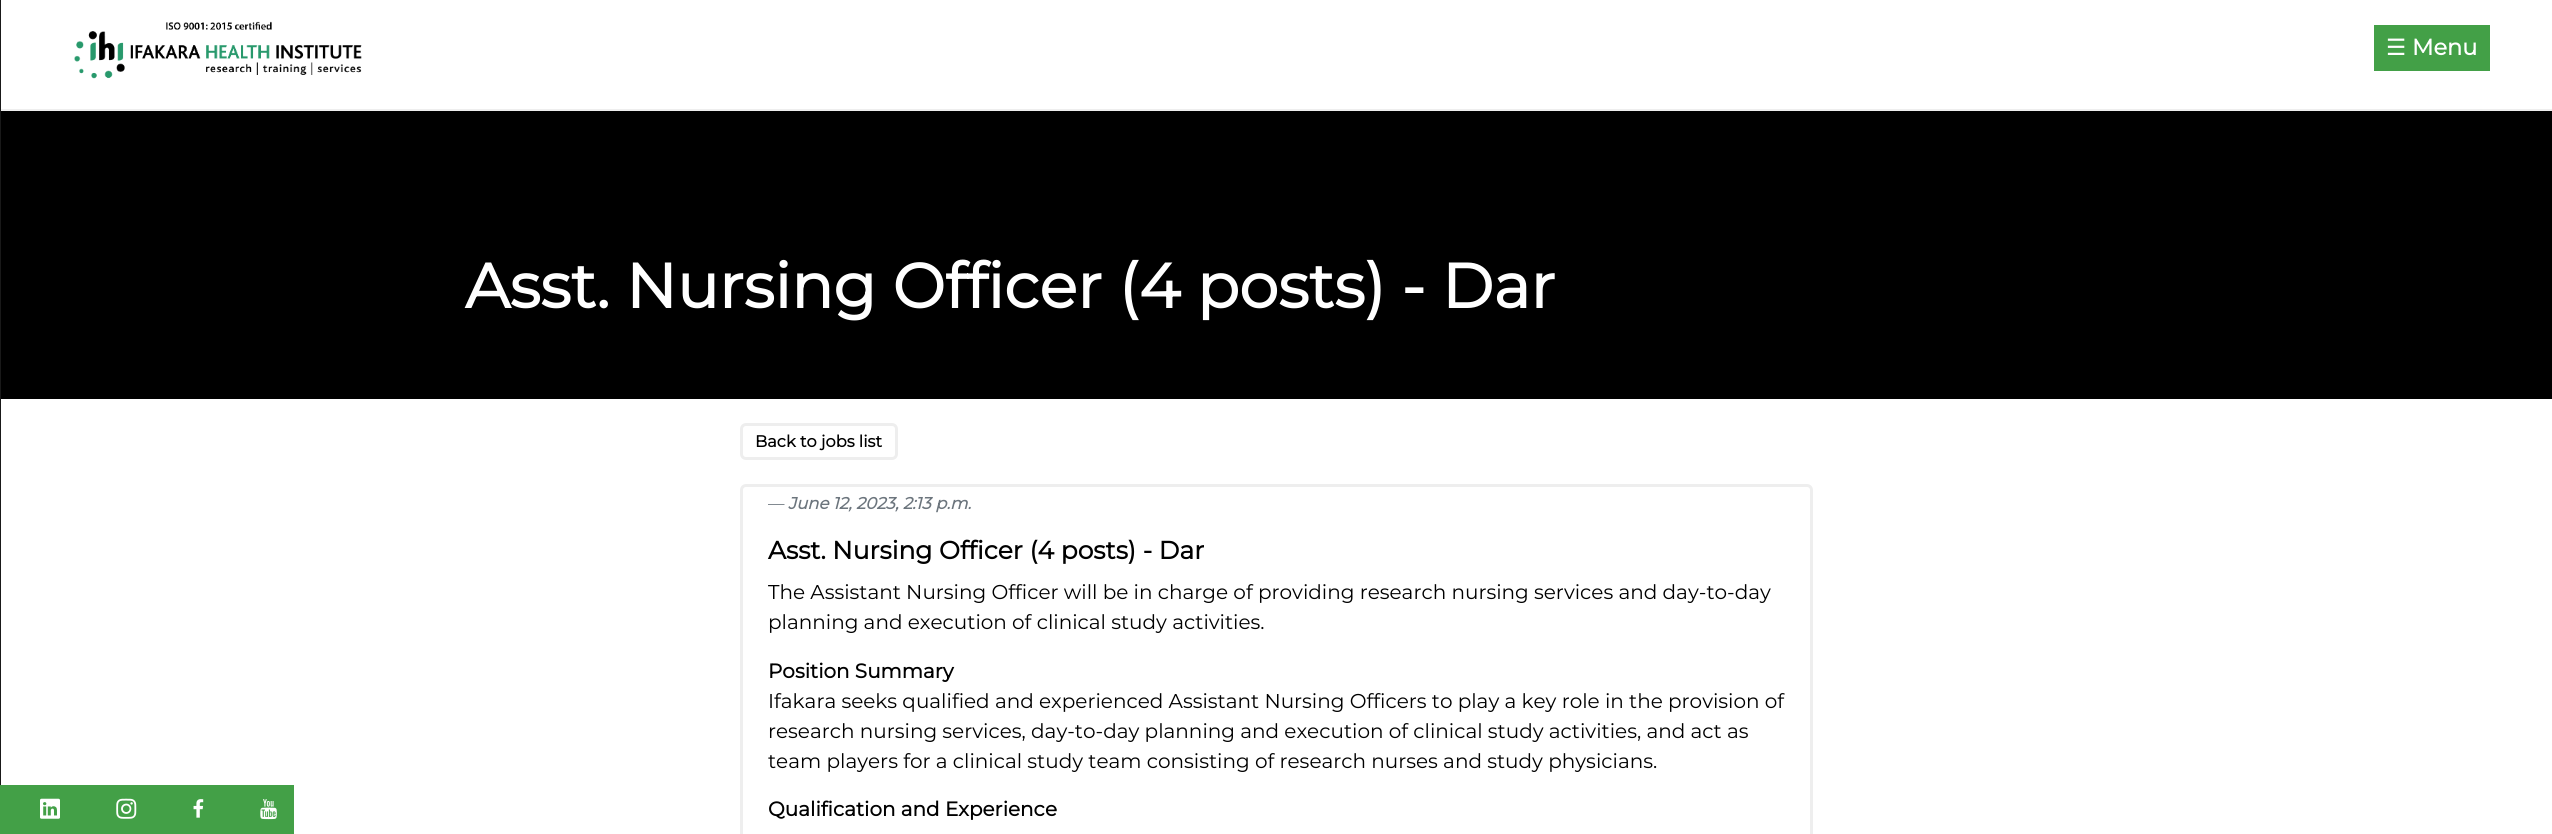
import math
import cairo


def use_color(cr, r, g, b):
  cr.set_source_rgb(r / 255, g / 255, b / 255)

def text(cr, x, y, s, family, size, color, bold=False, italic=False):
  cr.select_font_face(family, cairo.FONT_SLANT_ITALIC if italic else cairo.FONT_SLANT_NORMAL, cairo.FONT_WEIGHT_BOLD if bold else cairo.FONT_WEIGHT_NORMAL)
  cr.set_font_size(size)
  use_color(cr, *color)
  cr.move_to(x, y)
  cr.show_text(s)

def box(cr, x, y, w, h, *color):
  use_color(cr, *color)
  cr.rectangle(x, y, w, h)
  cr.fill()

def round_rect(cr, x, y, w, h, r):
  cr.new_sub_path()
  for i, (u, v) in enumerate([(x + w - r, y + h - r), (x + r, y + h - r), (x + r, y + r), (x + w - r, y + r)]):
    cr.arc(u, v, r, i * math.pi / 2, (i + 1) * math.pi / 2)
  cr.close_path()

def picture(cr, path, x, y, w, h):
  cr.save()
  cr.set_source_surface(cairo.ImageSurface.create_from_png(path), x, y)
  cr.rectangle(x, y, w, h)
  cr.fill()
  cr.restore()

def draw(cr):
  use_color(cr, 255, 255, 255)
  cr.paint()
  box(cr, 0, 109, 2552, 2, 238, 238, 238)
  box(cr, 0, 0, 1, 785, 25, 25, 25)
  box(cr, 0, 785, 294, 49, 67, 160, 71)
  picture(cr, "img_01.png", 40, 798, 20, 21)
  picture(cr, "img_02.png", 116, 798, 21, 21)
  picture(cr, "img_03.png", 193, 799, 11, 19)
  picture(cr, "img_04.png", 260, 799, 17, 21)
  picture(cr, "img_05.png", 74, 21, 288, 58)
  box(cr, 2374, 25, 116, 46, 67, 160, 71)
  box(cr, 1, 111, 2551, 288, 0, 0, 0)
  round_rect(cr, 741.5, 424.5, 155, 34, 4.5)
  use_color(cr, 238, 238, 238)
  cr.set_line_width(3)
  cr.stroke()
  round_rect(cr, 741.5, 485.5, 1070, 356, 4.5)
  cr.stroke()
  text(cr, 2386, 55, "☰", "DejaVu Sans", 22.5, (255, 255, 255))
  text(cr, 2412, 55, "Menu", "Montserrat", 22.5, (255, 255, 255), bold=True)
  text(cr, 465, 308, "Asst. Nursing Officer (4 posts) - Dar", "Montserrat", 62.5, (255, 255, 255), bold=True)
  text(cr, 755, 447, "Back to jobs list", "Montserrat", 16.25, (0, 0, 0), bold=True)
  text(cr, 768, 509, "—", "Montserrat Thin", 16.5, (108, 117, 125))
  text(cr, 788, 509, "June 12, 2023, 2:13 p.m.", "Montserrat", 16.5, (108, 117, 125), bold=True, italic=True)
  text(cr, 768, 559, "Asst. Nursing Officer (4 posts) - Dar", "Montserrat", 25, (0, 0, 0), bold=True)
  text(cr, 768, 599, "The Assistant Nursing Officer will be in charge of providing research nursing services and day-to-day", "Montserrat Thin", 20, (0, 0, 0))
  text(cr, 768, 629, "planning and execution of clinical study activities.", "Montserrat Thin", 20, (0, 0, 0))
  text(cr, 768, 678, "Position Summary", "Montserrat", 20, (0, 0, 0), bold=True)
  text(cr, 768, 708, "Ifakara seeks qualified and experienced Assistant Nursing Officers to play a key role in the provision of", "Montserrat Thin", 20, (0, 0, 0))
  text(cr, 768, 738, "research nursing services, day-to-day planning and execution of clinical study activities, and act as", "Montserrat Thin", 20, (0, 0, 0))
  text(cr, 768, 768, "team players for a clinical study team consisting of research nurses and study physicians.", "Montserrat Thin", 20, (0, 0, 0))
  text(cr, 768, 816, "Qualification and Experience", "Montserrat", 20, (0, 0, 0), bold=True)


surface = cairo.ImageSurface(cairo.FORMAT_RGB24, 2552, 834)
cr = cairo.Context(surface)
options = cairo.FontOptions()
options.set_hint_metrics(cairo.HINT_METRICS_OFF)
options.set_hint_style(cairo.HINT_STYLE_NONE)
cr.set_font_options(options)
cr.set_miter_limit(4)
draw(cr)
surface.write_to_png("out.png")
